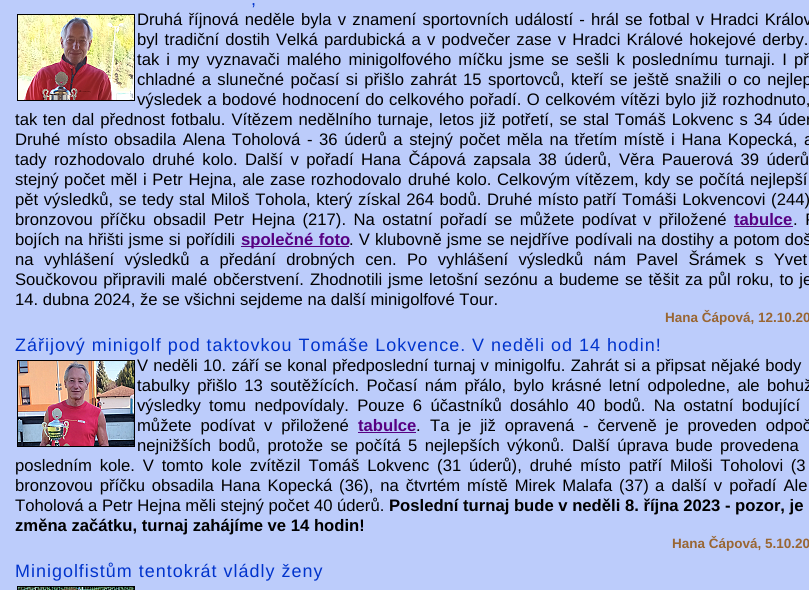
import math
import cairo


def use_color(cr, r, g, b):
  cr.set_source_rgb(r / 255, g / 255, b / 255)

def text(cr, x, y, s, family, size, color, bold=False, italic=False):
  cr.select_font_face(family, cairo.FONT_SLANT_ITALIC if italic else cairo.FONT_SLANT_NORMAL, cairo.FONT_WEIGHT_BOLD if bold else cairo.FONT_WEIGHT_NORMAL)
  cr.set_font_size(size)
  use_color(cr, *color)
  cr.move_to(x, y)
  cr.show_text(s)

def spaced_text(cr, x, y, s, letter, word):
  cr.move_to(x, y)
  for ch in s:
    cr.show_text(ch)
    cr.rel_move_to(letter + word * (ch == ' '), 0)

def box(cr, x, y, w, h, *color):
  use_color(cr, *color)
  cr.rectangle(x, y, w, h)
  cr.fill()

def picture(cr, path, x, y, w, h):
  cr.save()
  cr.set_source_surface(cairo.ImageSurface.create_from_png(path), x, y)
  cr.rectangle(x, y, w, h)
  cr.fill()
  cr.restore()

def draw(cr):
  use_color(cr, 188, 204, 251)
  cr.paint()
  picture(cr, "img_01.png", 17, 14, 118, 87)
  box(cr, 734, 226, 59, 1, 87, 0, 130)
  box(cr, 241, 246, 108, 1, 87, 0, 130)
  picture(cr, "img_02.png", 17, 360, 118, 87)
  box(cr, 358, 432, 58, 1, 87, 0, 130)
  picture(cr, "img_03.png", 17, 586, 118, 4)
  cr.select_font_face("Liberation Sans")
  cr.set_font_size(17.95)
  use_color(cr, 0, 51, 204)
  spaced_text(cr, 251, 5, ",", 1, 0)
  cr.set_font_size(16.65)
  use_color(cr, 0, 0, 0)
  spaced_text(cr, 137, 25, "Druhá říjnová neděle byla v znamení sportovních událostí - hrál se fotbal v Hradci Králov", 0, 1.6)
  spaced_text(cr, 137, 45, "byl tradiční dostih", 0, 1.6)
  spaced_text(cr, 276, 45, "Velká pardubická a v podvečer zase v Hradci Králové hokejové derby.", 0, 1.6)
  spaced_text(cr, 137, 65, "tak i my vyznavači malého minigolfového míčku", 0, 2.5)
  spaced_text(cr, 509, 65, "jsme se sešli k poslednímu turnaji. I př", 0, 2.5)
  spaced_text(cr, 137, 85, "chladné a slunečné počasí si přišlo zahrát 15 sportovců, kteří se ještě", 0, 1.75)
  spaced_text(cr, 675, 85, "snažili o co nejlep", 0, 1.75)
  spaced_text(cr, 137, 105, "výsledek a bodové hodnocení do celkového pořadí. O celkovém vítězi bylo již rozhodnuto,", 0, 0.8)
  spaced_text(cr, 15, 125, "tak ten", 0, 1)
  spaced_text(cr, 72, 125, "dal přednost fotbalu. Vítězem nedělního turnaje, letos již potřetí, se stal Tomáš Lokvenc s 34 úder", 0, 1.3)
  spaced_text(cr, 15, 145, "Druhé místo", 0, 2)
  spaced_text(cr, 114, 145, "obsadila Alena Toholová -", 0, 2)
  spaced_text(cr, 319, 145, "36 úderů a stejný počet měla na třetím místě i Hana Kopecká, a", 0, 2)
  spaced_text(cr, 15, 165, "tady rozhodovalo druhé kolo.", 0, 2.9)
  spaced_text(cr, 245, 165, "Další v pořadí Hana Čápová zapsala 38 úderů, Věra Pauerová 39 úderů", 0, 2.9)
  spaced_text(cr, 15, 185, "stejný počet měl i Petr Hejna, ale zase rozhodovalo", 0, 1)
  spaced_text(cr, 408, 185, "druhé kolo. Celkovým vítězem, kdy se počítá nejlepší", 0, 1)
  spaced_text(cr, 15, 205, "pět výsledků, se tedy stal Miloš Tohola, který získal 264 bodů. Druhé místo", 0, 1)
  spaced_text(cr, 583, 205, "patří Tomáši Lokvencovi (244)", 0, 1)
  spaced_text(cr, 15, 225, "bronzovou příčku obsadil Petr Hejna (217). Na ostatní pořadí se můžete podívat", 0, 2.9)
  spaced_text(cr, 643, 225, "v přiložené", 0, 2.9)
  text(cr, 734, 225, "tabulce", "Liberation Sans", 16.65, (87, 0, 130), bold=True)
  cr.select_font_face("Liberation Sans")
  use_color(cr, 0, 0, 0)
  spaced_text(cr, 793, 225, ". P", 0, 2.9)
  spaced_text(cr, 15, 245, "bojích na hřišti jsme si pořídili", 0, 0.5)
  cr.select_font_face("Liberation Sans", cairo.FONT_SLANT_NORMAL, cairo.FONT_WEIGHT_BOLD)
  use_color(cr, 87, 0, 130)
  spaced_text(cr, 241, 245, "společné foto", 0, 1)
  cr.select_font_face("Liberation Sans")
  use_color(cr, 0, 0, 0)
  spaced_text(cr, 349, 245, ". V klubovně jsme se nejdříve", 0, 0.5)
  spaced_text(cr, 575, 245, "podívali na dostihy a potom doš", 0, 0.5)
  spaced_text(cr, 15, 265, "na vyhlášení výsledků a předání drobných cen. Po vyhlášení výsledků nám Pavel Šrámek", 0, 5.75)
  spaced_text(cr, 755, 265, "s Yvet", 0, 5.75)
  spaced_text(cr, 15, 285, "Součkovou připravili malé občerstvení. Zhodnotili jsme letošní sezónu a budeme se těšit za půl roku, to je", 0, 1.3)
  text(cr, 15, 305, "14. dubna 2024, že se všichni sejdeme na další minigolfové Tour.", "Liberation Sans", 16.65, (0, 0, 0))
  text(cr, 665, 322, "Hana Čápová, 12.10.20", "Liberation Sans", 13.5, (153, 102, 51), bold=True)
  cr.select_font_face("Liberation Sans")
  cr.set_font_size(17.95)
  use_color(cr, 0, 51, 204)
  spaced_text(cr, 15, 351, "Zářijový minigolf pod taktovkou Tomáše Lokvence. V neděli od 14 hodin!", 1, 0)
  cr.set_font_size(16.65)
  use_color(cr, 0, 0, 0)
  spaced_text(cr, 137, 371, "V neděli 10. září se konal předposlední turnaj v minigolfu. Zahrát si a připsat nějaké body", 0, 0.6)
  spaced_text(cr, 137, 391, "tabulky přišlo 13 soutěžících. Počasí nám přálo, bylo krásné letní odpoledne, ale bohuž", 0, 2.75)
  text(cr, 137, 411, "výsledky", "Liberation Sans", 16.65, (0, 0, 0))
  spaced_text(cr, 209, 411, "tomu nedpovídaly. Pouze 6 účastníků dosáhlo 40 bodů. Na ostatní bodující", 0, 3.75)
  spaced_text(cr, 137, 431, "můžete podívat v přiložené", 0, 4.25)
  text(cr, 358, 431, "tabulce", "Liberation Sans", 16.65, (87, 0, 130), bold=True)
  text(cr, 416, 431, ".", "Liberation Sans", 16.65, (0, 0, 0))
  spaced_text(cr, 430, 431, "Ta je již opravená - červeně je proveden odpoč", 0, 4.25)
  spaced_text(cr, 137, 451, "nejnižších bodů, protože se počítá 5 nejlepších výkonů.", 0, 2.75)
  spaced_text(cr, 572, 451, "Další úprava bude provedena", 0, 2.75)
  spaced_text(cr, 15, 471, "posledním kole. V tomto kole zvítězil Tomáš Lokvenc (31 úderů), druhé místo patří", 0, 3.25)
  spaced_text(cr, 670, 471, "Miloši Toholovi (3", 0, 3)
  spaced_text(cr, 15, 491, "bronzovou příčku obsadila Hana Kopecká (36), na čtvrtém místě Mirek Malafa (37)", 0, 2.25)
  spaced_text(cr, 655, 491, "a další v pořadí Ale", 0, 2.5)
  text(cr, 15, 511, "Toholová a Petr Hejna měli stejný počet 40 úderů.", "Liberation Sans", 16.65, (0, 0, 0))
  text(cr, 389, 511, "Poslední turnaj bude v neděli 8. října 2023 - pozor, je", "Liberation Sans", 16.65, (0, 0, 0), bold=True)
  text(cr, 15, 531, "změna začátku, turnaj zahájíme ve 14 hodin!", "Liberation Sans", 16.65, (0, 0, 0), bold=True)
  text(cr, 672, 548, "Hana Čápová, 5.10.20", "Liberation Sans", 13.5, (153, 102, 51), bold=True)
  cr.select_font_face("Liberation Sans")
  cr.set_font_size(17.95)
  use_color(cr, 0, 51, 204)
  spaced_text(cr, 15, 577, "Minigolfistům tentokrát vládly ženy", 1, 0)


surface = cairo.ImageSurface(cairo.FORMAT_RGB24, 809, 590)
cr = cairo.Context(surface)
options = cairo.FontOptions()
options.set_hint_metrics(cairo.HINT_METRICS_OFF)
options.set_hint_style(cairo.HINT_STYLE_NONE)
cr.set_font_options(options)
cr.set_miter_limit(4)
draw(cr)
surface.write_to_png("out.png")
